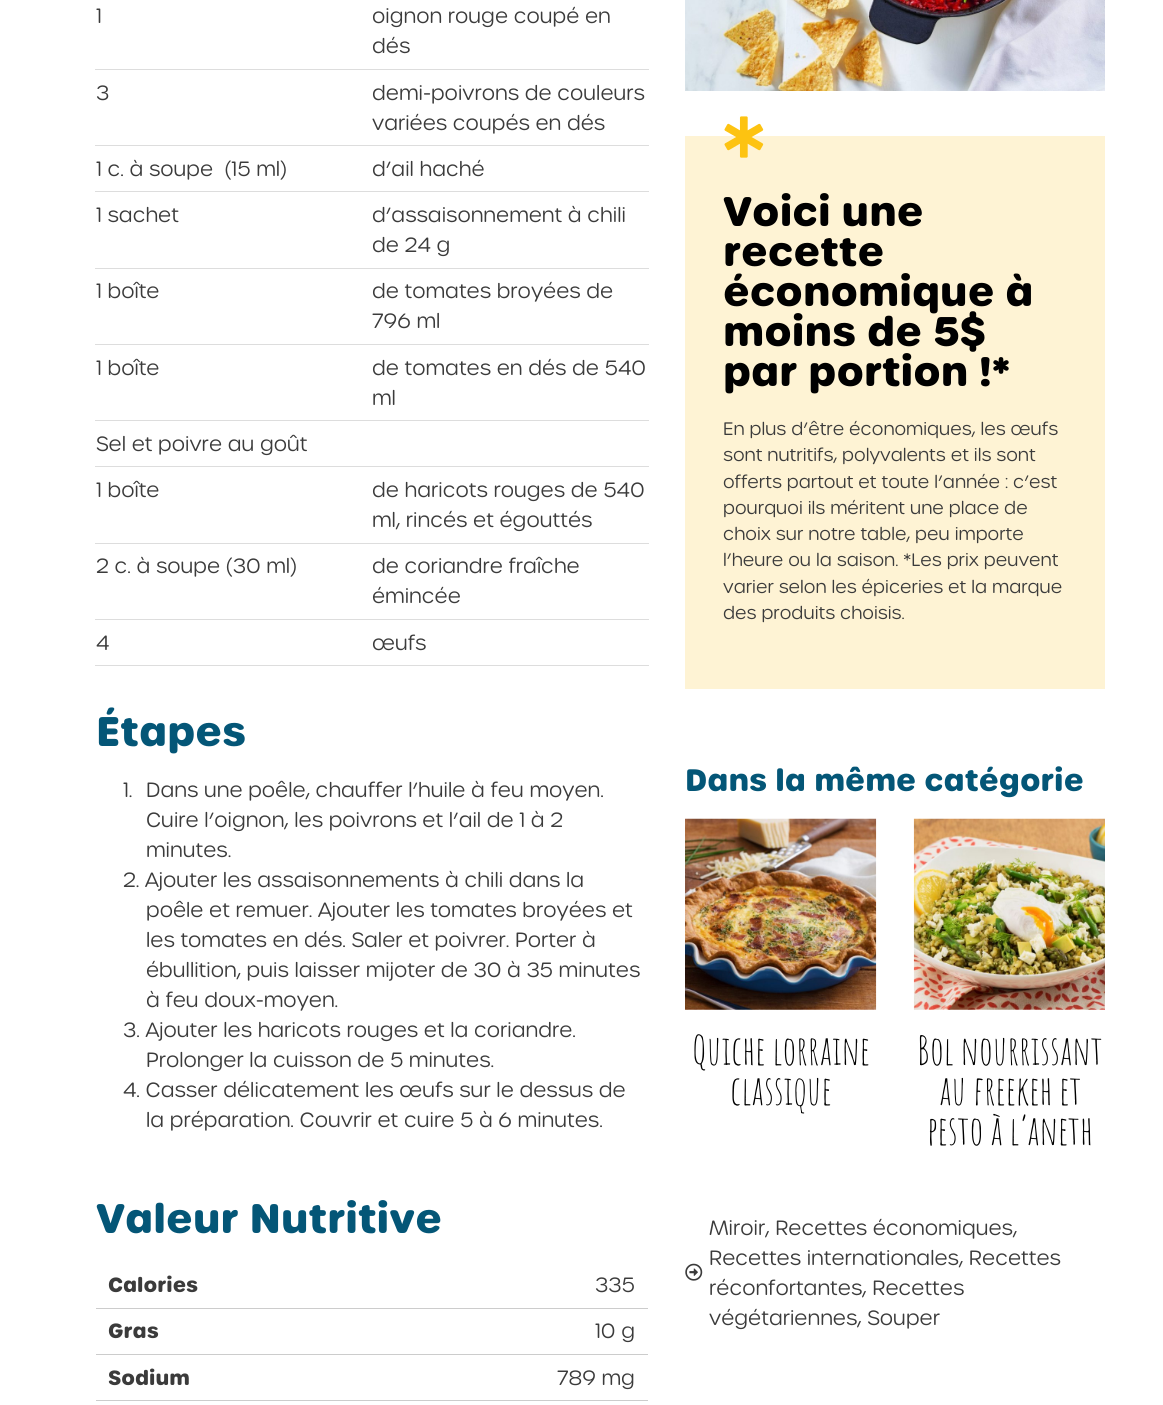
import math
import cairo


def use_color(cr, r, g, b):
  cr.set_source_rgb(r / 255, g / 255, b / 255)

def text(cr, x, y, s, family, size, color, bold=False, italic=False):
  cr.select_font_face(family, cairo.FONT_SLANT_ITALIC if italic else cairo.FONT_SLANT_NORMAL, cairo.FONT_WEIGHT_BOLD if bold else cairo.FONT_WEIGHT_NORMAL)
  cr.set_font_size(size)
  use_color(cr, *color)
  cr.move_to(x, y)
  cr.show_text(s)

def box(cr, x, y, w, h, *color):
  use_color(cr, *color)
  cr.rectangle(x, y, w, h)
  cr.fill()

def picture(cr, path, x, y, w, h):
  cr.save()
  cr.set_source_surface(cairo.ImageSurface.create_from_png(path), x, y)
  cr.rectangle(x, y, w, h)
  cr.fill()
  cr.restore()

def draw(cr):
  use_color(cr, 255, 255, 255)
  cr.paint()
  box(cr, 95, 69, 554, 1, 221, 221, 221)
  box(cr, 95, 145, 554, 1, 221, 221, 221)
  box(cr, 95, 191, 554, 1, 221, 221, 221)
  box(cr, 95, 268, 554, 1, 221, 221, 221)
  box(cr, 95, 344, 554, 1, 221, 221, 221)
  box(cr, 95, 420, 554, 1, 221, 221, 221)
  box(cr, 95, 466, 554, 1, 221, 221, 221)
  box(cr, 95, 543, 554, 1, 221, 221, 221)
  box(cr, 95, 619, 554, 1, 221, 221, 221)
  box(cr, 95, 665, 554, 1, 221, 221, 221)
  box(cr, 96, 1308, 552, 1, 204, 204, 204)
  box(cr, 96, 1354, 552, 1, 204, 204, 204)
  box(cr, 96, 1400, 552, 1, 204, 204, 204)
  picture(cr, "img_01.png", 685, 0, 420, 91)
  box(cr, 685, 136, 420, 553, 254, 243, 212)
  picture(cr, "img_02.png", 724, 116, 40, 42)
  picture(cr, "img_03.png", 685, 818, 192, 192)
  picture(cr, "img_04.png", 913, 818, 192, 192)
  picture(cr, "img_05.png", 685, 1263, 18, 18)
  text(cr, 96, 23, "1", "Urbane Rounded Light", 20, (59, 59, 59))
  text(cr, 372, 23, "oignon rouge coupé en", "Urbane Rounded Light", 20, (59, 59, 59))
  text(cr, 372, 53, "dés", "Urbane Rounded Light", 20, (59, 59, 59))
  text(cr, 96, 100, "3", "Urbane Rounded Light", 20, (59, 59, 59))
  text(cr, 372, 100, "demi-poivrons de couleurs", "Urbane Rounded Light", 20, (59, 59, 59))
  text(cr, 372, 130, "variées coupés en dés", "Urbane Rounded Light", 20, (59, 59, 59))
  text(cr, 96, 176, "1 c. à soupe  (15 ml)", "Urbane Rounded Light", 20, (59, 59, 59))
  text(cr, 372, 176, "d’ail haché", "Urbane Rounded Light", 20, (59, 59, 59))
  text(cr, 96, 222, "1 sachet", "Urbane Rounded Light", 20, (59, 59, 59))
  text(cr, 372, 222, "d’assaisonnement à chili", "Urbane Rounded Light", 20, (59, 59, 59))
  text(cr, 372, 252, "de 24 g", "Urbane Rounded Light", 20, (59, 59, 59))
  text(cr, 96, 298, "1 boîte", "Urbane Rounded Light", 20, (59, 59, 59))
  text(cr, 372, 298, "de tomates broyées de", "Urbane Rounded Light", 20, (59, 59, 59))
  text(cr, 372, 328, "796 ml", "Urbane Rounded Light", 20, (59, 59, 59))
  text(cr, 96, 375, "1 boîte", "Urbane Rounded Light", 20, (59, 59, 59))
  text(cr, 372, 375, "de tomates en dés de 540", "Urbane Rounded Light", 20, (59, 59, 59))
  text(cr, 372, 405, "ml", "Urbane Rounded Light", 20, (59, 59, 59))
  text(cr, 96, 451, "Sel et poivre au goût", "Urbane Rounded Light", 20, (59, 59, 59))
  text(cr, 96, 497, "1 boîte", "Urbane Rounded Light", 20, (59, 59, 59))
  text(cr, 372, 497, "de haricots rouges de 540", "Urbane Rounded Light", 20, (59, 59, 59))
  text(cr, 372, 527, "ml, rincés et égouttés", "Urbane Rounded Light", 20, (59, 59, 59))
  text(cr, 96, 573, "2 c. à soupe (30 ml)", "Urbane Rounded Light", 20, (59, 59, 59))
  text(cr, 372, 573, "de coriandre fraîche", "Urbane Rounded Light", 20, (59, 59, 59))
  text(cr, 372, 603, "émincée", "Urbane Rounded Light", 20, (59, 59, 59))
  text(cr, 96, 650, "4", "Urbane Rounded Light", 20, (59, 59, 59))
  text(cr, 372, 650, "œufs", "Urbane Rounded Light", 20, (59, 59, 59))
  text(cr, 96, 746, "Étapes", "Urbane Rounded", 40, (4, 86, 119), bold=True)
  text(cr, 123, 797, "1.", "Urbane Rounded Light", 20, (59, 59, 59))
  text(cr, 146, 797, "Dans une poêle, chauffer l’huile à feu moyen.", "Urbane Rounded Light", 20, (59, 59, 59))
  text(cr, 146, 827, "Cuire l’oignon, les poivrons et l’ail de 1 à 2", "Urbane Rounded Light", 20, (59, 59, 59))
  text(cr, 146, 857, "minutes.", "Urbane Rounded Light", 20, (59, 59, 59))
  text(cr, 123, 887, "2. Ajouter les assaisonnements à chili dans la", "Urbane Rounded Light", 20, (59, 59, 59))
  text(cr, 146, 917, "poêle et remuer. Ajouter les tomates broyées et", "Urbane Rounded Light", 20, (59, 59, 59))
  text(cr, 146, 947, "les tomates en dés. Saler et poivrer. Porter à", "Urbane Rounded Light", 20, (59, 59, 59))
  text(cr, 146, 977, "ébullition, puis laisser mijoter de 30 à 35 minutes", "Urbane Rounded Light", 20, (59, 59, 59))
  text(cr, 146, 1007, "à feu doux-moyen.", "Urbane Rounded Light", 20, (59, 59, 59))
  text(cr, 123, 1037, "3. Ajouter les haricots rouges et la coriandre.", "Urbane Rounded Light", 20, (59, 59, 59))
  text(cr, 146, 1067, "Prolonger la cuisson de 5 minutes.", "Urbane Rounded Light", 20, (59, 59, 59))
  text(cr, 123, 1097, "4. Casser délicatement les œufs sur le dessus de", "Urbane Rounded Light", 20, (59, 59, 59))
  text(cr, 146, 1127, "la préparation. Couvrir et cuire 5 à 6 minutes.", "Urbane Rounded Light", 20, (59, 59, 59))
  text(cr, 96, 1233, "Valeur Nutritive", "Urbane Rounded", 40, (4, 86, 119), bold=True)
  text(cr, 108, 1292, "Calories", "Urbane Rounded", 20, (59, 59, 59), bold=True)
  text(cr, 595, 1292, "335", "Urbane Rounded Light", 20, (59, 59, 59))
  text(cr, 108, 1338, "Gras", "Urbane Rounded", 20, (59, 59, 59), bold=True)
  text(cr, 595, 1338, "10 g", "Urbane Rounded Light", 20, (59, 59, 59))
  text(cr, 108, 1385, "Sodium", "Urbane Rounded", 20, (59, 59, 59), bold=True)
  text(cr, 557, 1385, "789 mg", "Urbane Rounded Light", 20, (59, 59, 59))
  text(cr, 723, 226, "Voici une", "Urbane Rounded", 40, (0, 0, 0), bold=True)
  text(cr, 723, 266, "recette", "Urbane Rounded", 40, (0, 0, 0), bold=True)
  text(cr, 723, 306, "économique à", "Urbane Rounded", 40, (0, 0, 0), bold=True)
  text(cr, 723, 346, "moins de 5$", "Urbane Rounded", 40, (0, 0, 0), bold=True)
  text(cr, 723, 386, "par portion !*", "Urbane Rounded", 40, (0, 0, 0), bold=True)
  text(cr, 723, 435, "En plus d’être économiques, les œufs", "Urbane Rounded Light", 17.5, (59, 59, 59))
  text(cr, 723, 461, "sont nutritifs, polyvalents et ils sont", "Urbane Rounded Light", 17.5, (59, 59, 59))
  text(cr, 723, 488, "offerts partout et toute l’année : c’est", "Urbane Rounded Light", 17.5, (59, 59, 59))
  text(cr, 723, 514, "pourquoi ils méritent une place de", "Urbane Rounded Light", 17.5, (59, 59, 59))
  text(cr, 723, 540, "choix sur notre table, peu importe", "Urbane Rounded Light", 17.5, (59, 59, 59))
  text(cr, 723, 566, "l’heure ou la saison. *Les prix peuvent", "Urbane Rounded Light", 17.5, (59, 59, 59))
  text(cr, 723, 593, "varier selon les épiceries et la marque", "Urbane Rounded Light", 17.5, (59, 59, 59))
  text(cr, 723, 619, "des produits choisis.", "Urbane Rounded Light", 17.5, (59, 59, 59))
  text(cr, 685, 791, "Dans la même catégorie", "Urbane Rounded", 30, (4, 86, 119), bold=True)
  text(cr, 692, 1065, "Quiche lorraine", "Amatic SC", 40, (0, 0, 0))
  text(cr, 730, 1105, "classique", "Amatic SC", 40, (0, 0, 0))
  text(cr, 917, 1065, "Bol nourrissant", "Amatic SC", 40, (0, 0, 0))
  text(cr, 939, 1105, "au freekeh et", "Amatic SC", 40, (0, 0, 0))
  text(cr, 927, 1145, "pesto à l’aneth", "Amatic SC", 40, (0, 0, 0))
  text(cr, 709, 1235, "Miroir, Recettes économiques,", "Urbane Rounded Light", 20, (59, 59, 59))
  text(cr, 709, 1265, "Recettes internationales, Recettes", "Urbane Rounded Light", 20, (59, 59, 59))
  text(cr, 709, 1295, "réconfortantes, Recettes", "Urbane Rounded Light", 20, (59, 59, 59))
  text(cr, 709, 1325, "végétariennes, Souper", "Urbane Rounded Light", 20, (59, 59, 59))


surface = cairo.ImageSurface(cairo.FORMAT_RGB24, 1163, 1405)
cr = cairo.Context(surface)
options = cairo.FontOptions()
options.set_hint_metrics(cairo.HINT_METRICS_OFF)
options.set_hint_style(cairo.HINT_STYLE_NONE)
cr.set_font_options(options)
cr.set_miter_limit(4)
draw(cr)
surface.write_to_png("out.png")
